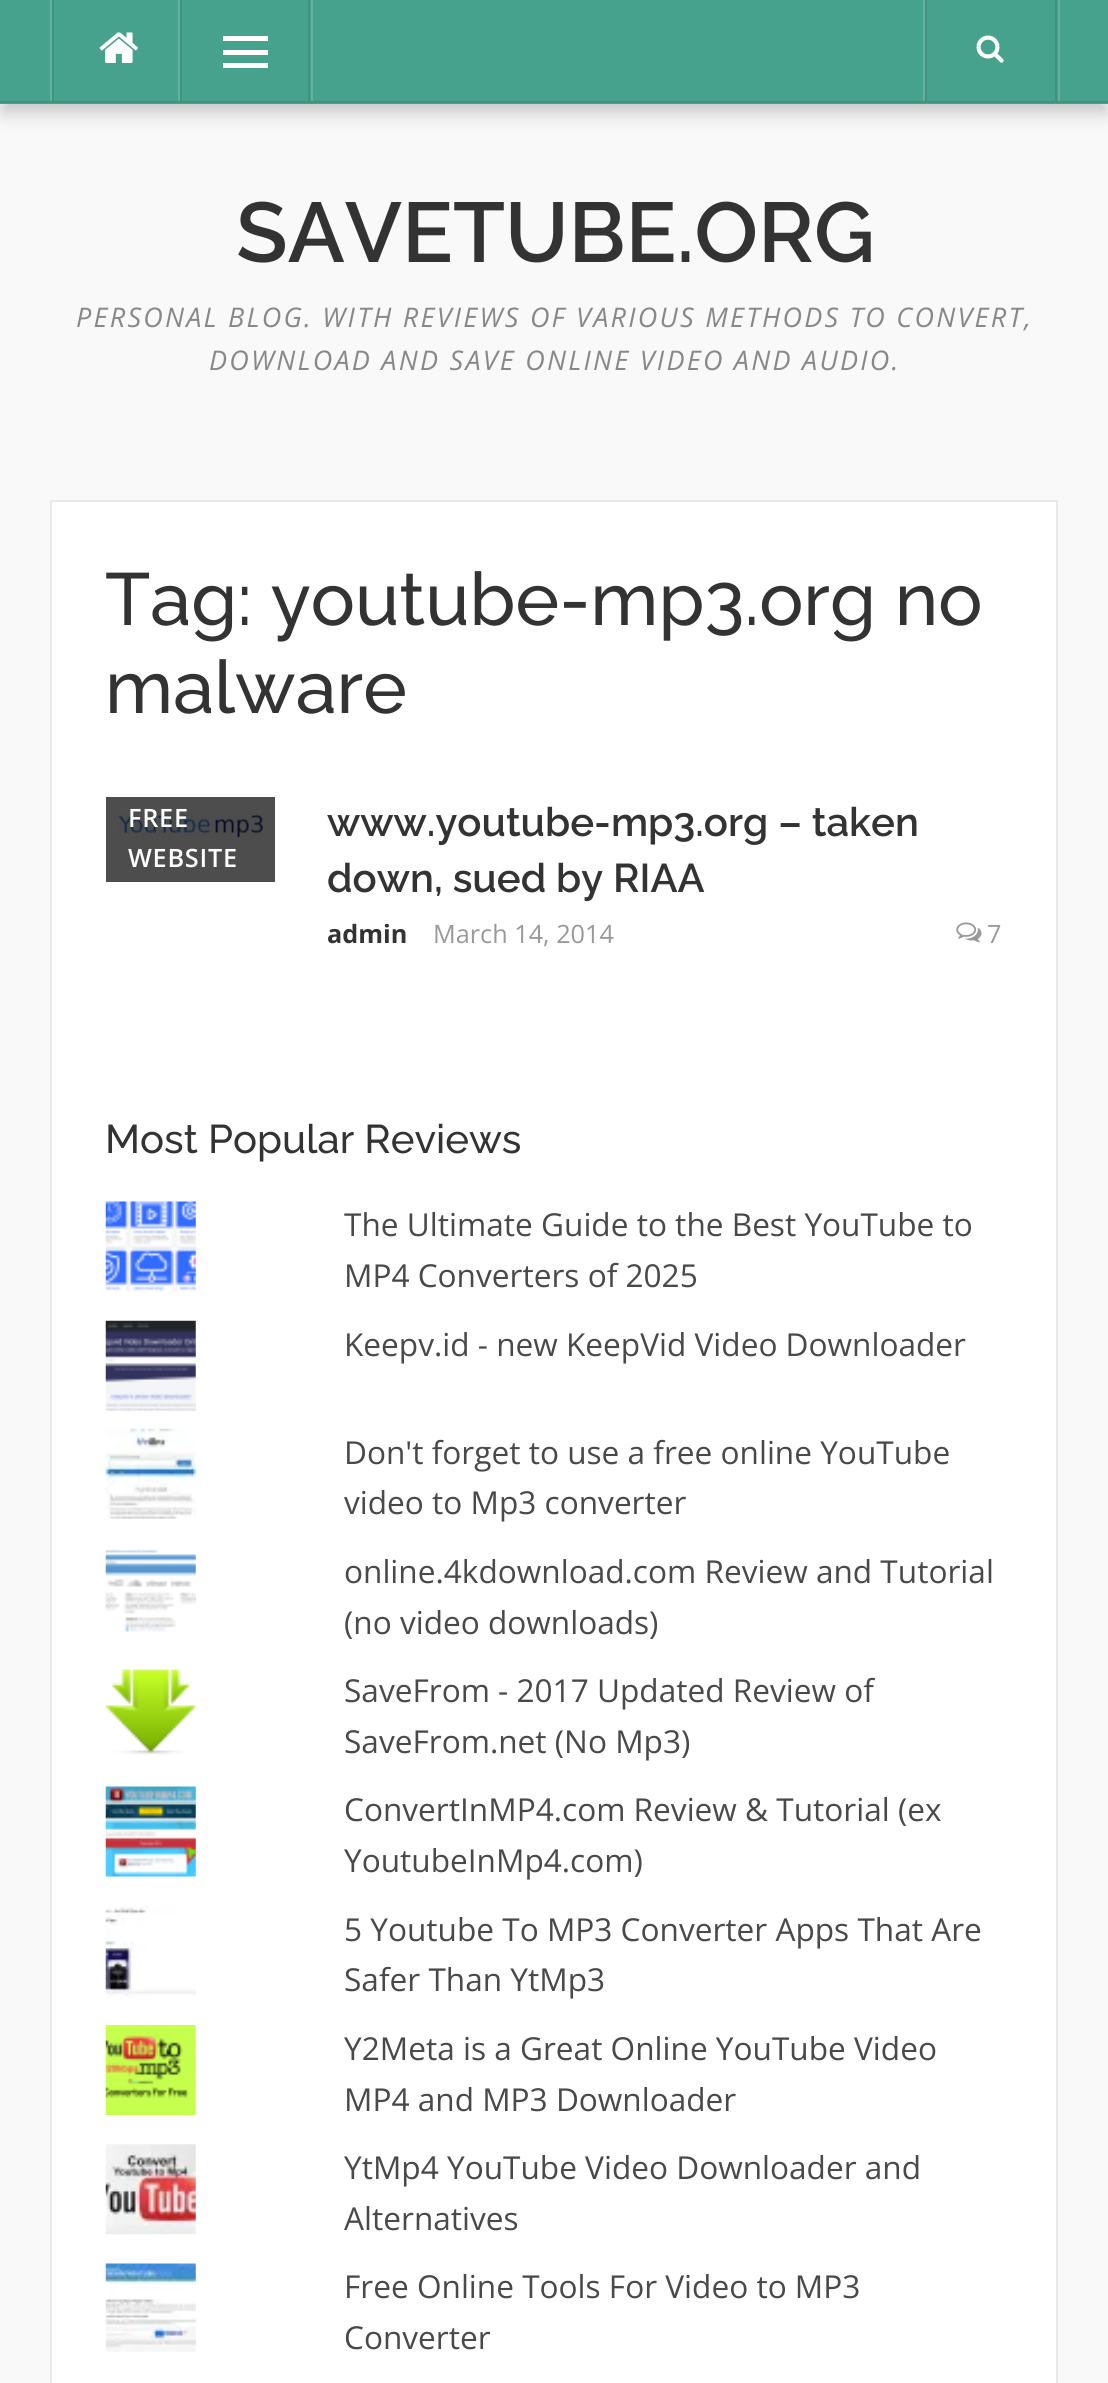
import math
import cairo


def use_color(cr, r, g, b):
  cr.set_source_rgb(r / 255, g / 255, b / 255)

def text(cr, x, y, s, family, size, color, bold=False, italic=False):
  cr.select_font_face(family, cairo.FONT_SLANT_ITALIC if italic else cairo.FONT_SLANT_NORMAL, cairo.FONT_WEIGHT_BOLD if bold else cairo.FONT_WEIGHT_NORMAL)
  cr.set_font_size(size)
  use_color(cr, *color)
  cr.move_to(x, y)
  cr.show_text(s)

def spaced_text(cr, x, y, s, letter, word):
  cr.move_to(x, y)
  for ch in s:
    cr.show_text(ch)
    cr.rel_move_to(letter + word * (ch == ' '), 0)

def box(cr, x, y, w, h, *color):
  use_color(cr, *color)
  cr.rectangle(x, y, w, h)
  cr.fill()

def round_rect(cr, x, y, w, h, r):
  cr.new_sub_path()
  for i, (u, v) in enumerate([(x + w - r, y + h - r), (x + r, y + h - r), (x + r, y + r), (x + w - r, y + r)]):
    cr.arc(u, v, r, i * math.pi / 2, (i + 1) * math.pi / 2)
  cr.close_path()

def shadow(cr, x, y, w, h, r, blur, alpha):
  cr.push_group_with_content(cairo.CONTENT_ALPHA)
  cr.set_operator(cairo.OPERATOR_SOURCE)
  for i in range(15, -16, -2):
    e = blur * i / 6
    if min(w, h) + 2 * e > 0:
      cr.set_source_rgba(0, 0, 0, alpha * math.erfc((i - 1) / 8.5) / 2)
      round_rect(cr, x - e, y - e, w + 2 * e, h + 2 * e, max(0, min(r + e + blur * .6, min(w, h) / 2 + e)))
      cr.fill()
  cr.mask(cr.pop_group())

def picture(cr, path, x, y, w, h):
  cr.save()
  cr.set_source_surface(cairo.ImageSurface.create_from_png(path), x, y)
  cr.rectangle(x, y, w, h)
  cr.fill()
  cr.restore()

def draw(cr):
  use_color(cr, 249, 249, 249)
  cr.paint()
  use_color(cr, 0, 0, 0)
  shadow(cr, 2, 14, 1105, 99, 0, 9, 0.2)
  box(cr, 0, 0, 1108, 104, 70, 162, 141)
  box(cr, 50, 0, 2, 101, 98, 176, 158)
  box(cr, 52, 0, 2, 101, 63, 146, 127)
  picture(cr, "img_01.png", 99, 32, 39, 31)
  box(cr, 178, 0, 2, 101, 98, 176, 158)
  box(cr, 180, 0, 2, 101, 63, 146, 127)
  box(cr, 223, 50, 45, 5, 255, 255, 255)
  box(cr, 223, 36, 45, 5, 255, 255, 255)
  box(cr, 223, 63, 45, 5, 255, 255, 255)
  box(cr, 308, 0, 2, 101, 63, 146, 127)
  box(cr, 311, 0, 2, 101, 98, 176, 158)
  box(cr, 923, 0, 2, 101, 98, 176, 158)
  box(cr, 925, 0, 2, 101, 63, 146, 127)
  picture(cr, "img_02.png", 976, 35, 28, 28)
  box(cr, 1055, 0, 2, 101, 63, 146, 127)
  box(cr, 1058, 0, 2, 101, 98, 176, 158)
  box(cr, 0, 101, 1108, 2, 63, 146, 127)
  box(cr, 52, 502, 1004, 1881, 255, 255, 255)
  box(cr, 106, 797, 169, 85, 77, 77, 77)
  cr.rectangle(51, 501, 1006, 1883)
  use_color(cr, 233, 233, 233)
  cr.stroke()
  picture(cr, "img_03.png", 118, 815, 145, 23)
  picture(cr, "img_04.png", 956, 922, 26, 21)
  picture(cr, "img_05.png", 105, 1201, 91, 91)
  picture(cr, "img_06.png", 105, 1320, 91, 91)
  picture(cr, "img_07.png", 105, 1428, 91, 91)
  picture(cr, "img_08.png", 105, 1549, 91, 83)
  picture(cr, "img_09.png", 105, 1669, 91, 86)
  picture(cr, "img_10.png", 105, 1786, 91, 91)
  picture(cr, "img_11.png", 105, 1906, 91, 90)
  picture(cr, "img_12.png", 105, 2025, 91, 90)
  picture(cr, "img_13.png", 105, 2144, 91, 91)
  picture(cr, "img_14.png", 105, 2263, 91, 89)
  text(cr, 236, 262, "SAVETUBE.ORG", "Raleway SemiBold", 84.5, (51, 51, 51))
  cr.select_font_face("Open Sans", cairo.FONT_SLANT_ITALIC)
  cr.set_font_size(27)
  use_color(cr, 136, 136, 136)
  spaced_text(cr, 76, 327, "PERSONAL BLOG. WITH REVIEWS OF VARIOUS METHODS TO CONVERT,", 2.25, 0)
  spaced_text(cr, 209, 370, "DOWNLOAD AND SAVE ONLINE VIDEO AND AUDIO.", 2.25, 0)
  text(cr, 105, 625, "Tag: youtube-mp3.org no", "Raleway Medium", 73.75, (51, 51, 51))
  text(cr, 105, 713, "malware", "Raleway Medium", 73.75, (51, 51, 51))
  cr.select_font_face("Open Sans SemiBold")
  cr.set_font_size(25.25)
  use_color(cr, 255, 255, 255)
  spaced_text(cr, 128, 827, "FREE", 0.75, 0)
  spaced_text(cr, 128, 867, "WEBSITE", 0.75, 0)
  text(cr, 327, 836, "www.youtube-mp3.org – taken", "Raleway SemiBold", 40.1, (51, 51, 51))
  text(cr, 327, 892, "down, sued by RIAA", "Raleway SemiBold", 40.1, (51, 51, 51))
  text(cr, 327, 943, "admin", "Open Sans", 25.25, (51, 51, 51), bold=True)
  text(cr, 433, 943, "March 14, 2014", "Open Sans", 25.25, (153, 153, 153))
  text(cr, 987, 943, "7", "Open Sans", 25.25, (153, 153, 153))
  text(cr, 105, 1153, "Most Popular Reviews", "Raleway Medium", 40.1, (51, 51, 51))
  text(cr, 344, 1236, "The Ultimate Guide to the Best YouTube to", "Open Sans", 31.6, (73, 73, 73))
  text(cr, 344, 1287, "MP4 Converters of 2025", "Open Sans", 31.6, (73, 73, 73))
  text(cr, 344, 1356, "Keepv.id - new KeepVid Video Downloader", "Open Sans", 31.6, (73, 73, 73))
  text(cr, 344, 1464, "Don't forget to use a free online YouTube", "Open Sans", 31.6, (73, 73, 73))
  text(cr, 344, 1514, "video to Mp3 converter", "Open Sans", 31.6, (73, 73, 73))
  text(cr, 344, 1583, "online.4kdownload.com Review and Tutorial", "Open Sans", 31.6, (73, 73, 73))
  text(cr, 344, 1634, "(no video downloads)", "Open Sans", 31.6, (73, 73, 73))
  text(cr, 344, 1702, "SaveFrom - 2017 Updated Review of", "Open Sans", 31.6, (73, 73, 73))
  text(cr, 344, 1753, "SaveFrom.net (No Mp3)", "Open Sans", 31.6, (73, 73, 73))
  text(cr, 344, 1821, "ConvertInMP4.com Review & Tutorial (ex", "Open Sans", 31.6, (73, 73, 73))
  text(cr, 344, 1872, "YoutubeInMp4.com)", "Open Sans", 31.6, (73, 73, 73))
  text(cr, 344, 1941, "5 Youtube To MP3 Converter Apps That Are", "Open Sans", 31.6, (73, 73, 73))
  text(cr, 344, 1991, "Safer Than YtMp3", "Open Sans", 31.6, (73, 73, 73))
  text(cr, 344, 2060, "Y2Meta is a Great Online YouTube Video", "Open Sans", 31.6, (73, 73, 73))
  text(cr, 344, 2111, "MP4 and MP3 Downloader", "Open Sans", 31.6, (73, 73, 73))
  text(cr, 344, 2179, "YtMp4 YouTube Video Downloader and", "Open Sans", 31.6, (73, 73, 73))
  text(cr, 344, 2230, "Alternatives", "Open Sans", 31.6, (73, 73, 73))
  text(cr, 344, 2298, "Free Online Tools For Video to MP3", "Open Sans", 31.6, (73, 73, 73))
  text(cr, 344, 2349, "Converter", "Open Sans", 31.6, (73, 73, 73))


surface = cairo.ImageSurface(cairo.FORMAT_RGB24, 1108, 2383)
cr = cairo.Context(surface)
options = cairo.FontOptions()
options.set_hint_metrics(cairo.HINT_METRICS_OFF)
options.set_hint_style(cairo.HINT_STYLE_NONE)
cr.set_font_options(options)
cr.set_miter_limit(4)
draw(cr)
surface.write_to_png("out.png")
